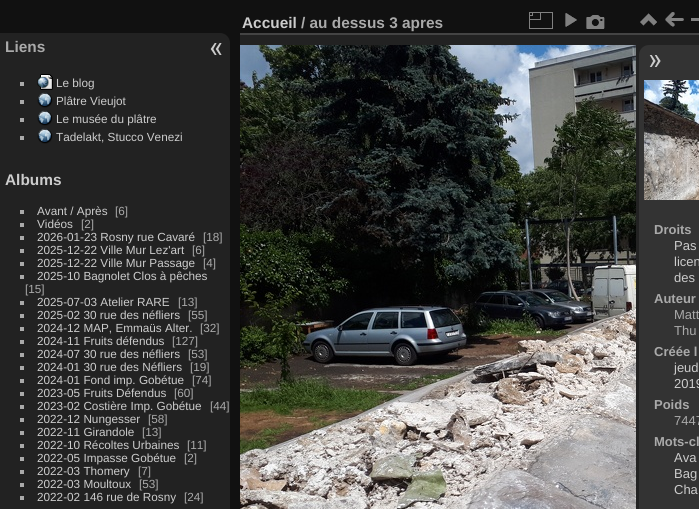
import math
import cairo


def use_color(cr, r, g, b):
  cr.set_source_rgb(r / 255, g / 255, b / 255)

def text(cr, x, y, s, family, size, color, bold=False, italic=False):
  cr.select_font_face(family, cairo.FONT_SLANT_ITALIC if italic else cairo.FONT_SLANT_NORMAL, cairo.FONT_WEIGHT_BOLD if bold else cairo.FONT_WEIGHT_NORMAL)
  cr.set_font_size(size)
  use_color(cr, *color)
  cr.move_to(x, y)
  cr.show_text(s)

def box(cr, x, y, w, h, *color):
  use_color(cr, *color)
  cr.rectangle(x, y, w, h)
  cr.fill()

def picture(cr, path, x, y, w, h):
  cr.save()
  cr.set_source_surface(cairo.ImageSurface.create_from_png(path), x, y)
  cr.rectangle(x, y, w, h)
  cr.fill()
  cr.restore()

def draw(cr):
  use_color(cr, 17, 17, 17)
  cr.paint()
  use_color(cr, 34, 34, 34)
  cr.new_path()
  cr.move_to(0, 33)
  cr.line_to(220, 33)
  cr.curve_to(225.5, 33, 230, 37.5, 230, 43)
  cr.line_to(230, 509)
  cr.curve_to(230, 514.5, 225.5, 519, 220, 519)
  cr.line_to(0, 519)
  cr.close_path()
  cr.fill()
  box(cr, 20, 82, 4, 4, 170, 170, 170)
  picture(cr, "img_01.png", 37, 74, 16, 16)
  box(cr, 20, 100, 4, 4, 170, 170, 170)
  picture(cr, "img_02.png", 37, 92, 16, 16)
  box(cr, 20, 118, 4, 4, 170, 170, 170)
  picture(cr, "img_02.png", 37, 110, 16, 16)
  box(cr, 20, 136, 4, 4, 170, 170, 170)
  picture(cr, "img_02.png", 37, 128, 16, 16)
  box(cr, 20, 210, 4, 4, 170, 170, 170)
  box(cr, 20, 223, 4, 4, 170, 170, 170)
  box(cr, 20, 236, 4, 4, 170, 170, 170)
  box(cr, 20, 249, 4, 4, 170, 170, 170)
  box(cr, 20, 262, 4, 4, 170, 170, 170)
  box(cr, 20, 275, 4, 4, 170, 170, 170)
  box(cr, 20, 301, 4, 4, 170, 170, 170)
  box(cr, 20, 314, 4, 4, 170, 170, 170)
  box(cr, 20, 327, 4, 4, 170, 170, 170)
  box(cr, 20, 340, 4, 4, 170, 170, 170)
  box(cr, 20, 353, 4, 4, 170, 170, 170)
  box(cr, 20, 366, 4, 4, 170, 170, 170)
  box(cr, 20, 379, 4, 4, 170, 170, 170)
  box(cr, 20, 392, 4, 4, 170, 170, 170)
  box(cr, 20, 405, 4, 4, 170, 170, 170)
  box(cr, 20, 418, 4, 4, 170, 170, 170)
  box(cr, 20, 431, 4, 4, 170, 170, 170)
  box(cr, 20, 444, 4, 4, 170, 170, 170)
  box(cr, 20, 457, 4, 4, 170, 170, 170)
  box(cr, 20, 470, 4, 4, 170, 170, 170)
  box(cr, 20, 483, 4, 4, 170, 170, 170)
  box(cr, 20, 496, 4, 4, 170, 170, 170)
  box(cr, 240, 35, 459, 474, 34, 34, 34)
  box(cr, 240, 33, 459, 2, 68, 68, 68)
  picture(cr, "img_03.png", 529, 12, 24, 17)
  picture(cr, "img_04.png", 565, 13, 12, 14)
  picture(cr, "img_05.png", 586, 15, 19, 14)
  picture(cr, "img_06.png", 640, 13, 17, 13)
  picture(cr, "img_07.png", 665, 12, 19, 15)
  box(cr, 691, 18, 8, 3, 128, 128, 128)
  picture(cr, "img_08.png", 240, 45, 396, 464)
  use_color(cr, 51, 51, 51)
  cr.new_path()
  cr.move_to(649, 45)
  cr.line_to(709, 45)
  cr.line_to(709, 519)
  cr.line_to(649, 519)
  cr.curve_to(643.5, 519, 639, 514.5, 639, 509)
  cr.line_to(639, 55)
  cr.curve_to(639, 49.5, 643.5, 45, 649, 45)
  cr.close_path()
  cr.fill()
  picture(cr, "img_09.png", 649, 55, 12, 12)
  picture(cr, "img_10.png", 644, 80, 55, 120)
  picture(cr, "img_11.png", 210, 43, 12, 12)
  text(cr, 5, 52, "Liens", "Liberation Sans", 15.4, (170, 170, 170), bold=True)
  text(cr, 56, 87, "Le blog", "Liberation Sans", 11.75, (204, 204, 204))
  text(cr, 56, 105, "Plâtre Vieujot", "Liberation Sans", 11.75, (204, 204, 204))
  text(cr, 56, 123, "Le musée du plâtre", "Liberation Sans", 11.75, (204, 204, 204))
  text(cr, 56, 141, "Tadelakt, Stucco Venezi", "Liberation Sans", 11.75, (204, 204, 204))
  text(cr, 5, 185, "Albums", "Liberation Sans", 15.4, (204, 204, 204), bold=True)
  text(cr, 37, 215, "Avant / Après", "Liberation Sans", 11.75, (204, 204, 204))
  text(cr, 115, 215, "[6]", "Liberation Sans", 11.75, (170, 170, 170))
  text(cr, 37, 228, "Vidéos", "Liberation Sans", 11.75, (204, 204, 204))
  text(cr, 81, 228, "[2]", "Liberation Sans", 11.75, (170, 170, 170))
  text(cr, 37, 241, "2026-01-23 Rosny rue Cavaré", "Liberation Sans", 11.75, (204, 204, 204))
  text(cr, 203, 241, "[18]", "Liberation Sans", 11.75, (170, 170, 170))
  text(cr, 37, 254, "2025-12-22 Ville Mur Lez'art", "Liberation Sans", 11.75, (204, 204, 204))
  text(cr, 192, 254, "[6]", "Liberation Sans", 11.75, (170, 170, 170))
  text(cr, 37, 267, "2025-12-22 Ville Mur Passage", "Liberation Sans", 11.75, (204, 204, 204))
  text(cr, 203, 267, "[4]", "Liberation Sans", 11.75, (170, 170, 170))
  text(cr, 37, 280, "2025-10 Bagnolet Clos à pêches", "Liberation Sans", 11.75, (204, 204, 204))
  text(cr, 25, 293, "[15]", "Liberation Sans", 11.75, (170, 170, 170))
  text(cr, 37, 306, "2025-07-03 Atelier RARE", "Liberation Sans", 11.75, (204, 204, 204))
  text(cr, 178, 306, "[13]", "Liberation Sans", 11.75, (170, 170, 170))
  text(cr, 37, 319, "2025-02 30 rue des néfliers", "Liberation Sans", 11.75, (204, 204, 204))
  text(cr, 188, 319, "[55]", "Liberation Sans", 11.75, (170, 170, 170))
  text(cr, 37, 332, "2024-12 MAP, Emmaüs Alter.", "Liberation Sans", 11.75, (204, 204, 204))
  text(cr, 200, 332, "[32]", "Liberation Sans", 11.75, (170, 170, 170))
  text(cr, 37, 345, "2024-11 Fruits défendus", "Liberation Sans", 11.75, (204, 204, 204))
  text(cr, 172, 345, "[127]", "Liberation Sans", 11.75, (170, 170, 170))
  text(cr, 37, 358, "2024-07 30 rue des néfliers", "Liberation Sans", 11.75, (204, 204, 204))
  text(cr, 188, 358, "[53]", "Liberation Sans", 11.75, (170, 170, 170))
  text(cr, 37, 371, "2024-01 30 rue des Néfliers", "Liberation Sans", 11.75, (204, 204, 204))
  text(cr, 190, 371, "[19]", "Liberation Sans", 11.75, (170, 170, 170))
  text(cr, 37, 384, "2024-01 Fond imp. Gobétue", "Liberation Sans", 11.75, (204, 204, 204))
  text(cr, 192, 384, "[74]", "Liberation Sans", 11.75, (170, 170, 170))
  text(cr, 37, 397, "2023-05 Fruits Défendus", "Liberation Sans", 11.75, (204, 204, 204))
  text(cr, 174, 397, "[60]", "Liberation Sans", 11.75, (170, 170, 170))
  text(cr, 37, 410, "2023-02 Costière Imp. Gobétue", "Liberation Sans", 11.75, (204, 204, 204))
  text(cr, 210, 410, "[44]", "Liberation Sans", 11.75, (170, 170, 170))
  text(cr, 37, 423, "2022-12 Nungesser", "Liberation Sans", 11.75, (204, 204, 204))
  text(cr, 148, 423, "[58]", "Liberation Sans", 11.75, (170, 170, 170))
  text(cr, 37, 436, "2022-11 Girandole", "Liberation Sans", 11.75, (204, 204, 204))
  text(cr, 142, 436, "[13]", "Liberation Sans", 11.75, (170, 170, 170))
  text(cr, 37, 449, "2022-10 Récoltes Urbaines", "Liberation Sans", 11.75, (204, 204, 204))
  text(cr, 187, 449, "[11]", "Liberation Sans", 11.75, (170, 170, 170))
  text(cr, 37, 462, "2022-05 Impasse Gobétue", "Liberation Sans", 11.75, (204, 204, 204))
  text(cr, 184, 462, "[2]", "Liberation Sans", 11.75, (170, 170, 170))
  text(cr, 37, 475, "2022-03 Thomery", "Liberation Sans", 11.75, (204, 204, 204))
  text(cr, 138, 475, "[7]", "Liberation Sans", 11.75, (170, 170, 170))
  text(cr, 37, 488, "2022-03 Moultoux", "Liberation Sans", 11.75, (204, 204, 204))
  text(cr, 139, 488, "[53]", "Liberation Sans", 11.75, (170, 170, 170))
  text(cr, 37, 501, "2022-02 146 rue de Rosny", "Liberation Sans", 11.75, (204, 204, 204))
  text(cr, 184, 501, "[24]", "Liberation Sans", 11.75, (170, 170, 170))
  text(cr, 242, 28, "Accueil", "Liberation Sans", 15.4, (204, 204, 204), bold=True)
  text(cr, 301, 28, "/ au dessus 3 apres", "Liberation Sans", 15.4, (170, 170, 170), bold=True)
  text(cr, 654, 234, "Droits", "Liberation Sans", 13, (170, 170, 170), bold=True)
  text(cr, 674, 250, "Pas", "Liberation Sans", 13, (204, 204, 204))
  text(cr, 674, 266, "licen", "Liberation Sans", 13, (204, 204, 204))
  text(cr, 674, 282, "des", "Liberation Sans", 13, (204, 204, 204))
  text(cr, 654, 303, "Auteur", "Liberation Sans", 13, (170, 170, 170), bold=True)
  text(cr, 674, 319, "Matt", "Liberation Sans", 13, (170, 170, 170))
  text(cr, 674, 335, "Thu", "Liberation Sans", 13, (170, 170, 170))
  text(cr, 654, 356, "Créée l", "Liberation Sans", 13, (170, 170, 170), bold=True)
  text(cr, 674, 372, "jeud", "Liberation Sans", 13, (204, 204, 204))
  text(cr, 674, 388, "2019", "Liberation Sans", 13, (204, 204, 204))
  text(cr, 654, 409, "Poids", "Liberation Sans", 13, (170, 170, 170), bold=True)
  text(cr, 674, 425, "7447", "Liberation Sans", 13, (170, 170, 170))
  text(cr, 654, 446, "Mots-cl", "Liberation Sans", 13, (170, 170, 170), bold=True)
  text(cr, 674, 462, "Ava", "Liberation Sans", 13, (204, 204, 204))
  text(cr, 674, 478, "Bag", "Liberation Sans", 13, (204, 204, 204))
  text(cr, 674, 494, "Cha", "Liberation Sans", 13, (204, 204, 204))


surface = cairo.ImageSurface(cairo.FORMAT_RGB24, 699, 509)
cr = cairo.Context(surface)
options = cairo.FontOptions()
options.set_hint_metrics(cairo.HINT_METRICS_OFF)
options.set_hint_style(cairo.HINT_STYLE_NONE)
cr.set_font_options(options)
cr.set_miter_limit(4)
draw(cr)
surface.write_to_png("out.png")
